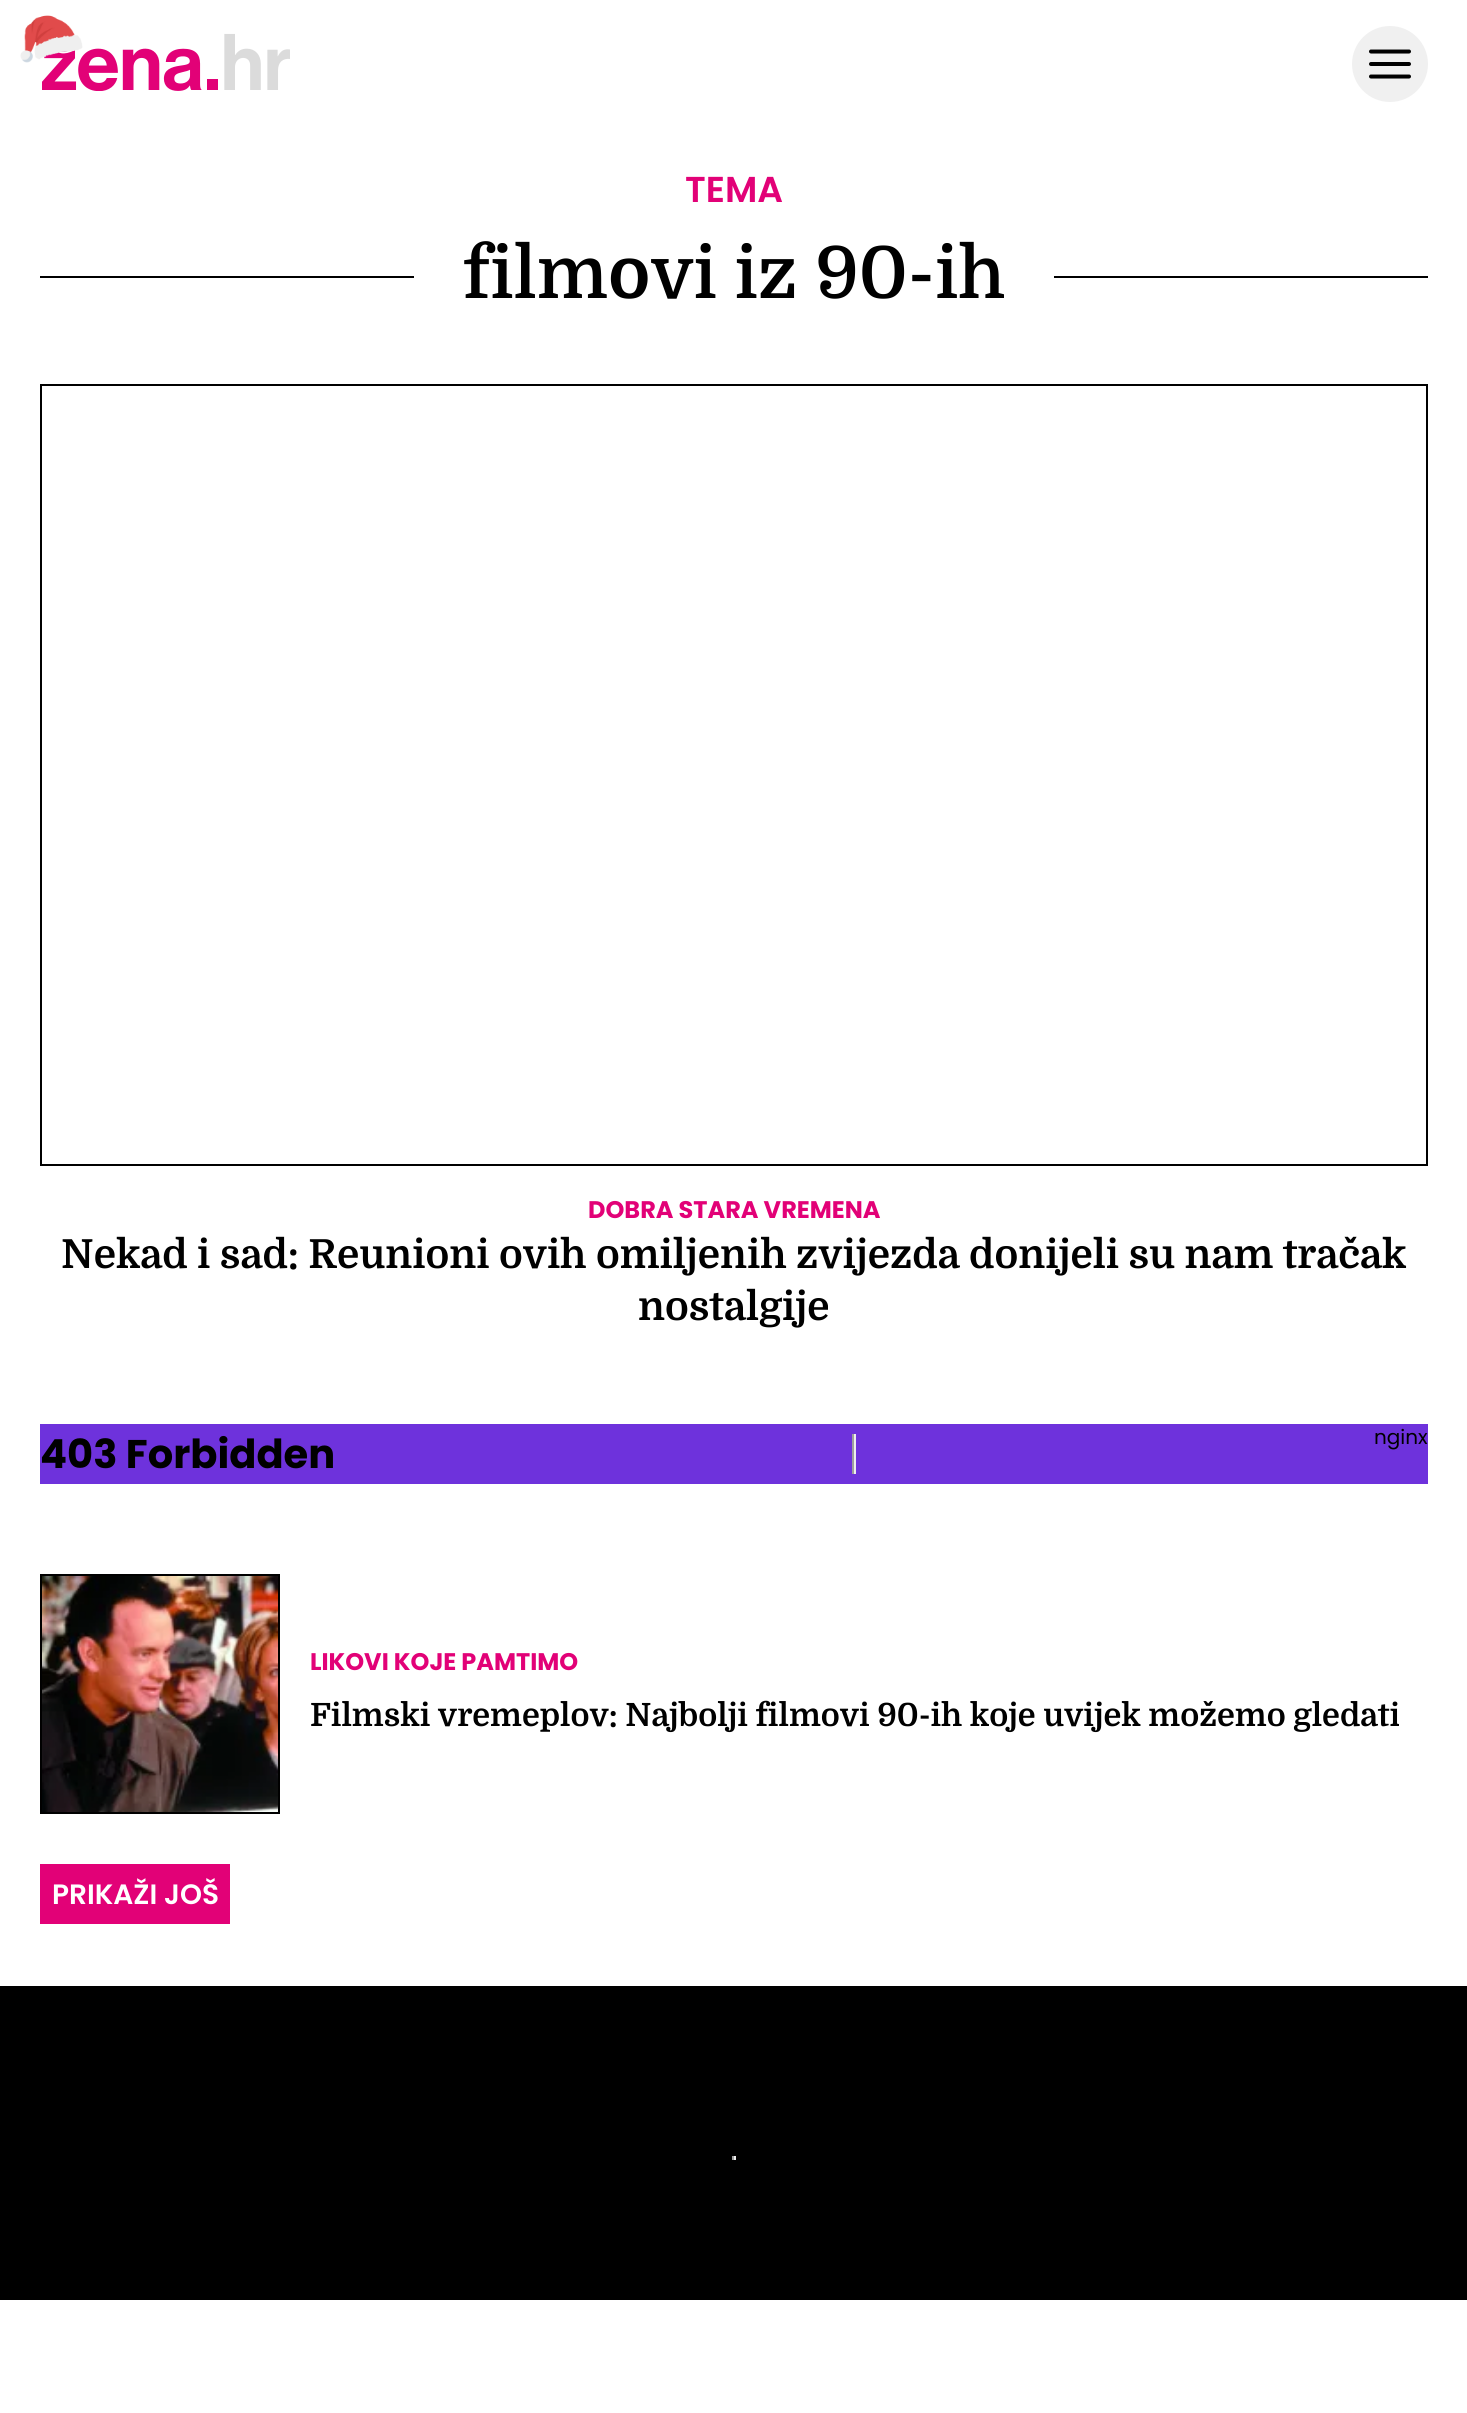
import math
import cairo


def use_color(cr, r, g, b):
  cr.set_source_rgb(r / 255, g / 255, b / 255)

def text(cr, x, y, s, family, size, color, bold=False, italic=False):
  cr.select_font_face(family, cairo.FONT_SLANT_ITALIC if italic else cairo.FONT_SLANT_NORMAL, cairo.FONT_WEIGHT_BOLD if bold else cairo.FONT_WEIGHT_NORMAL)
  cr.set_font_size(size)
  use_color(cr, *color)
  cr.move_to(x, y)
  cr.show_text(s)

def box(cr, x, y, w, h, *color):
  use_color(cr, *color)
  cr.rectangle(x, y, w, h)
  cr.fill()

def picture(cr, path, x, y, w, h):
  cr.save()
  cr.set_source_surface(cairo.ImageSurface.create_from_png(path), x, y)
  cr.rectangle(x, y, w, h)
  cr.fill()
  cr.restore()

def draw(cr):
  use_color(cr, 255, 255, 255)
  cr.paint()
  picture(cr, "img_02.png", 42, 30, 248, 61)
  picture(cr, "img_01.png", 20, 15, 63, 48)
  use_color(cr, 240, 240, 240)
  cr.arc(1390, 64, 38, 0, 2 * math.pi)
  cr.fill()
  cr.new_path()
  cr.move_to(1371, 64)
  cr.line_to(1409, 64)
  cr.move_to(1371, 51.5)
  cr.line_to(1409, 51.5)
  cr.move_to(1371, 76.5)
  cr.line_to(1409, 76.5)
  use_color(cr, 0, 0, 0)
  cr.set_line_width(4)
  cr.set_line_cap(cairo.LINE_CAP_ROUND)
  cr.set_line_join(cairo.LINE_JOIN_ROUND)
  cr.stroke()
  box(cr, 40, 276, 374, 2, 0, 0, 0)
  box(cr, 1054, 276, 374, 2, 0, 0, 0)
  cr.rectangle(41, 385, 1386, 780)
  cr.set_line_width(2)
  cr.set_line_cap(cairo.LINE_CAP_BUTT)
  cr.set_line_join(cairo.LINE_JOIN_MITER)
  cr.stroke()
  box(cr, 40, 1424, 1388, 60, 110, 50, 220)
  box(cr, 854, 1434, 2, 40, 238, 238, 238)
  box(cr, 852, 1472, 4, 2, 238, 238, 238)
  box(cr, 852, 1434, 2, 40, 159, 159, 159)
  cr.rectangle(41, 1575, 238, 238)
  use_color(cr, 0, 0, 0)
  cr.stroke()
  picture(cr, "img_03.png", 42, 1576, 236, 236)
  box(cr, 40, 1864, 190, 60, 226, 1, 119)
  box(cr, 0, 1986, 1467, 314, 0, 0, 0)
  box(cr, 734, 2156, 2, 4, 238, 238, 238)
  box(cr, 732, 2158, 4, 2, 238, 238, 238)
  box(cr, 732, 2156, 2, 4, 159, 159, 159)
  text(cr, 685, 202, "TEMA", "Poppins SemiBold", 36, (226, 1, 119))
  text(cr, 463, 298, "filmovi iz 90-ih", "Domine SemiBold", 72, (0, 0, 0))
  text(cr, 588, 1218, "DOBRA STARA VREMENA", "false", 24, (226, 1, 119), bold=True)
  text(cr, 61, 1268, "Nekad i sad: Reunioni ovih omiljenih zvijezda donijeli su nam tračak", "Domine", 40, (0, 0, 0), bold=True)
  text(cr, 638, 1320, "nostalgije", "Domine", 40, (0, 0, 0), bold=True)
  text(cr, 40, 1468, "403 Forbidden", "false", 40, (0, 0, 0), bold=True)
  text(cr, 1374, 1444, "nginx", "false", 20, (0, 0, 0))
  text(cr, 310, 1670, "LIKOVI KOJE PAMTIMO", "false", 24, (226, 1, 119), bold=True)
  text(cr, 310, 1726, "Filmski vremeplov: Najbolji filmovi 90-ih koje uvijek možemo gledati", "Domine", 32, (0, 0, 0), bold=True)
  text(cr, 52, 1904, "PRIKAŽI JOŠ", "Poppins SemiBold", 28, (255, 255, 255))


surface = cairo.ImageSurface(cairo.FORMAT_RGB24, 1467, 2413)
cr = cairo.Context(surface)
options = cairo.FontOptions()
options.set_hint_metrics(cairo.HINT_METRICS_OFF)
options.set_hint_style(cairo.HINT_STYLE_NONE)
cr.set_font_options(options)
cr.set_miter_limit(4)
draw(cr)
surface.write_to_png("out.png")
